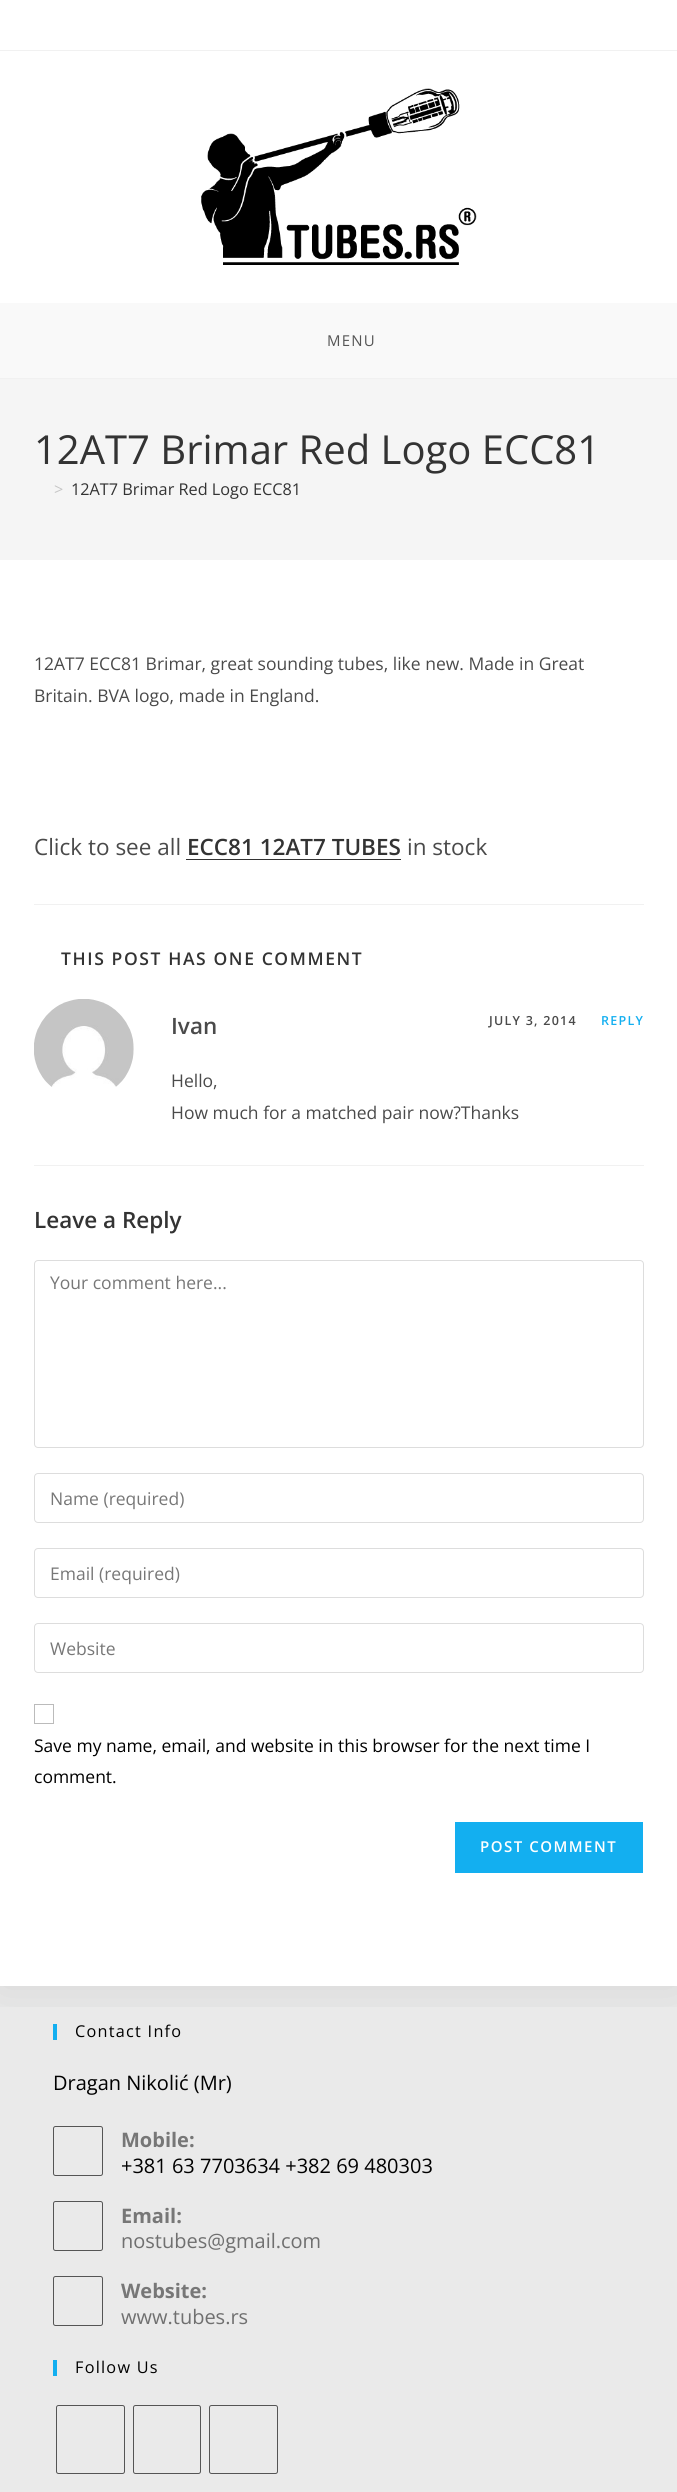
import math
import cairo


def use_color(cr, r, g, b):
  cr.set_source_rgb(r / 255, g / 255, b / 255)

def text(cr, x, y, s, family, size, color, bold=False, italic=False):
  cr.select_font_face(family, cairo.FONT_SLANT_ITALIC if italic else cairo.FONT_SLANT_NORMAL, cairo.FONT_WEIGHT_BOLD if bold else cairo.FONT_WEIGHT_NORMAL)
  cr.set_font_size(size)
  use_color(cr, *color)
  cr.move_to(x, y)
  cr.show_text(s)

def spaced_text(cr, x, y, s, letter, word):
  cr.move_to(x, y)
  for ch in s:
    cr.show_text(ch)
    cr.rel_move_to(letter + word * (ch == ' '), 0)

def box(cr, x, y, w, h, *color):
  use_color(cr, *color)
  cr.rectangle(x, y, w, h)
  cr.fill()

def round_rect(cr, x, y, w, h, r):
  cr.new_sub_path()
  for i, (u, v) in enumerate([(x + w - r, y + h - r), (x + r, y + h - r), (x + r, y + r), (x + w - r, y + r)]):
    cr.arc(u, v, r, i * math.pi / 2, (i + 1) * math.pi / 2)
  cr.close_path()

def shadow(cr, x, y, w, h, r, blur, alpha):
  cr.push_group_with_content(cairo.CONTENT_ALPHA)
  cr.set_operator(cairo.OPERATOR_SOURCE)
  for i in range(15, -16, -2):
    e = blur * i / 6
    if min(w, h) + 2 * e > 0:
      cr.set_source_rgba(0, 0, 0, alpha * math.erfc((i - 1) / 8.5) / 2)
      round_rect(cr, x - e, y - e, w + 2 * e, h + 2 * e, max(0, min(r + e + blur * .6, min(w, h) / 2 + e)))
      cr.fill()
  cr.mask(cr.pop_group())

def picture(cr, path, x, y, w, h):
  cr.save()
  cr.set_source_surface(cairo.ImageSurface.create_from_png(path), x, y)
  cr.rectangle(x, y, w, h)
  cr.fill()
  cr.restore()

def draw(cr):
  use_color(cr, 255, 255, 255)
  cr.paint()
  box(cr, 0, 50, 677, 1, 241, 241, 241)
  box(cr, 0, 1986, 677, 506, 234, 234, 234)
  box(cr, 53, 2024, 4, 16, 19, 175, 240)
  cr.save()
  cr.rectangle(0, 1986, 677, 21)
  cr.clip()
  use_color(cr, 0, 0, 0)
  shadow(cr, 0, 379, 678, 1607, 0, 25, 0.1)
  cr.restore()
  box(cr, 0, 378, 677, 1, 241, 241, 241)
  picture(cr, "img_01.png", 201, 88, 276, 177)
  box(cr, 0, 303, 677, 75, 249, 249, 249)
  box(cr, 0, 379, 677, 181, 245, 245, 245)
  box(cr, 186, 859, 215, 1, 51, 51, 51)
  box(cr, 34, 904, 610, 1, 241, 241, 241)
  box(cr, 34, 1165, 610, 1, 241, 241, 241)
  picture(cr, "img_02.png", 34, 999, 100, 88)
  round_rect(cr, 34.5, 1260.5, 609, 187, 3.5)
  use_color(cr, 221, 221, 221)
  cr.set_line_width(1)
  cr.stroke()
  round_rect(cr, 34.5, 1473.5, 609, 49, 3.5)
  cr.stroke()
  round_rect(cr, 34.5, 1548.5, 609, 49, 3.5)
  cr.stroke()
  round_rect(cr, 34.5, 1623.5, 609, 49, 3.5)
  cr.stroke()
  cr.rectangle(34.5, 1704.5, 19, 19)
  use_color(cr, 187, 187, 187)
  cr.stroke()
  box(cr, 455, 1822, 188, 51, 19, 175, 240)
  round_rect(cr, 53.5, 2126.5, 49, 49, 2)
  use_color(cr, 85, 85, 85)
  cr.stroke()
  round_rect(cr, 53.5, 2201.5, 49, 49, 2)
  cr.stroke()
  round_rect(cr, 53.5, 2276.5, 49, 49, 2)
  cr.stroke()
  box(cr, 53, 2360, 4, 16, 19, 175, 240)
  round_rect(cr, 56.5, 2405.5, 68, 68, 2)
  use_color(cr, 85, 85, 85)
  cr.stroke()
  round_rect(cr, 133.5, 2405.5, 67, 68, 2)
  cr.stroke()
  round_rect(cr, 209.5, 2405.5, 68, 68, 2)
  cr.stroke()
  cr.select_font_face("Open Sans")
  cr.set_font_size(15)
  spaced_text(cr, 327, 346, "MENU", 1.25, 0)
  text(cr, 34, 464, "12AT7 Brimar Red Logo ECC81", "Open Sans", 40, (51, 51, 51))
  text(cr, 54, 495, ">", "Open Sans", 16.25, (198, 198, 198))
  text(cr, 71, 495, "12AT7 Brimar Red Logo ECC81", "Open Sans", 16.25, (51, 51, 51))
  text(cr, 34, 670, "12AT7 ECC81 Brimar, great sounding tubes, like new. Made in Great", "Open Sans", 17.5, (74, 74, 74))
  text(cr, 34, 702, "Britain. BVA logo, made in England.", "Open Sans", 17.5, (74, 74, 74))
  text(cr, 34, 855, "Click to see all", "Open Sans", 22.5, (74, 74, 74))
  text(cr, 187, 855, "ECC81 12AT7 TUBES", "Open Sans SemiBold", 22.5, (51, 51, 51))
  text(cr, 407, 855, "in stock", "Open Sans", 22.5, (74, 74, 74))
  cr.select_font_face("Open Sans SemiBold")
  cr.set_font_size(17.5)
  use_color(cr, 51, 51, 51)
  spaced_text(cr, 61, 965, "THIS POST HAS ONE COMMENT", 1.6, 0)
  text(cr, 171, 1034, "Ivan", "Open Sans SemiBold", 22.5, (74, 74, 74))
  cr.set_font_size(12.5)
  spaced_text(cr, 489, 1025, "JULY 3, 2014", 1.25, 0)
  use_color(cr, 19, 175, 240)
  spaced_text(cr, 601, 1025, "REPLY", 1.25, 0)
  text(cr, 171, 1087, "Hello,", "Open Sans", 17.5, (74, 74, 74))
  text(cr, 171, 1119, "How much for a matched pair now?Thanks", "Open Sans", 17.5, (74, 74, 74))
  text(cr, 34, 1228, "Leave a Reply", "Open Sans SemiBold", 22.5, (51, 51, 51))
  text(cr, 50, 1289, "Your comment here...", "Open Sans", 17.5, (119, 119, 119))
  text(cr, 50, 1505, "Name (required)", "Open Sans", 17.5, (119, 119, 119))
  text(cr, 50, 1580, "Email (required)", "Open Sans", 17.5, (119, 119, 119))
  text(cr, 50, 1655, "Website", "Open Sans", 17.5, (119, 119, 119))
  text(cr, 34, 1752, "Save my name, email, and website in this browser for the next time I", "Open Sans", 17.5, (0, 0, 0))
  text(cr, 34, 1783, "comment.", "Open Sans", 17.5, (0, 0, 0))
  cr.select_font_face("Open Sans SemiBold")
  cr.set_font_size(15)
  use_color(cr, 255, 255, 255)
  spaced_text(cr, 480, 1852, "POST COMMENT", 1.5, 0)
  cr.select_font_face("Open Sans")
  cr.set_font_size(16.25)
  use_color(cr, 0, 0, 0)
  spaced_text(cr, 75, 2037, "Contact Info", 1.25, 0)
  text(cr, 53, 2090, "Dragan Nikolić (Mr)", "Open Sans", 20, (0, 0, 0))
  text(cr, 121, 2147, "Mobile:", "Open Sans", 20, (119, 119, 119), bold=True)
  text(cr, 121, 2173, "+381 63 7703634 +382 69 480303", "Open Sans", 20, (0, 0, 0))
  text(cr, 121, 2223, "Email:", "Open Sans", 20, (119, 119, 119), bold=True)
  text(cr, 121, 2248, "nostubes@gmail.com", "Open Sans", 20, (112, 112, 112))
  text(cr, 121, 2298, "Website:", "Open Sans", 20, (119, 119, 119), bold=True)
  text(cr, 121, 2324, "www.tubes.rs", "Open Sans", 20, (112, 112, 112))
  cr.set_font_size(16.25)
  use_color(cr, 0, 0, 0)
  spaced_text(cr, 75, 2373, "Follow Us", 1.25, 0)


surface = cairo.ImageSurface(cairo.FORMAT_RGB24, 677, 2492)
cr = cairo.Context(surface)
options = cairo.FontOptions()
options.set_hint_metrics(cairo.HINT_METRICS_OFF)
options.set_hint_style(cairo.HINT_STYLE_NONE)
cr.set_font_options(options)
cr.set_miter_limit(4)
draw(cr)
surface.write_to_png("out.png")
